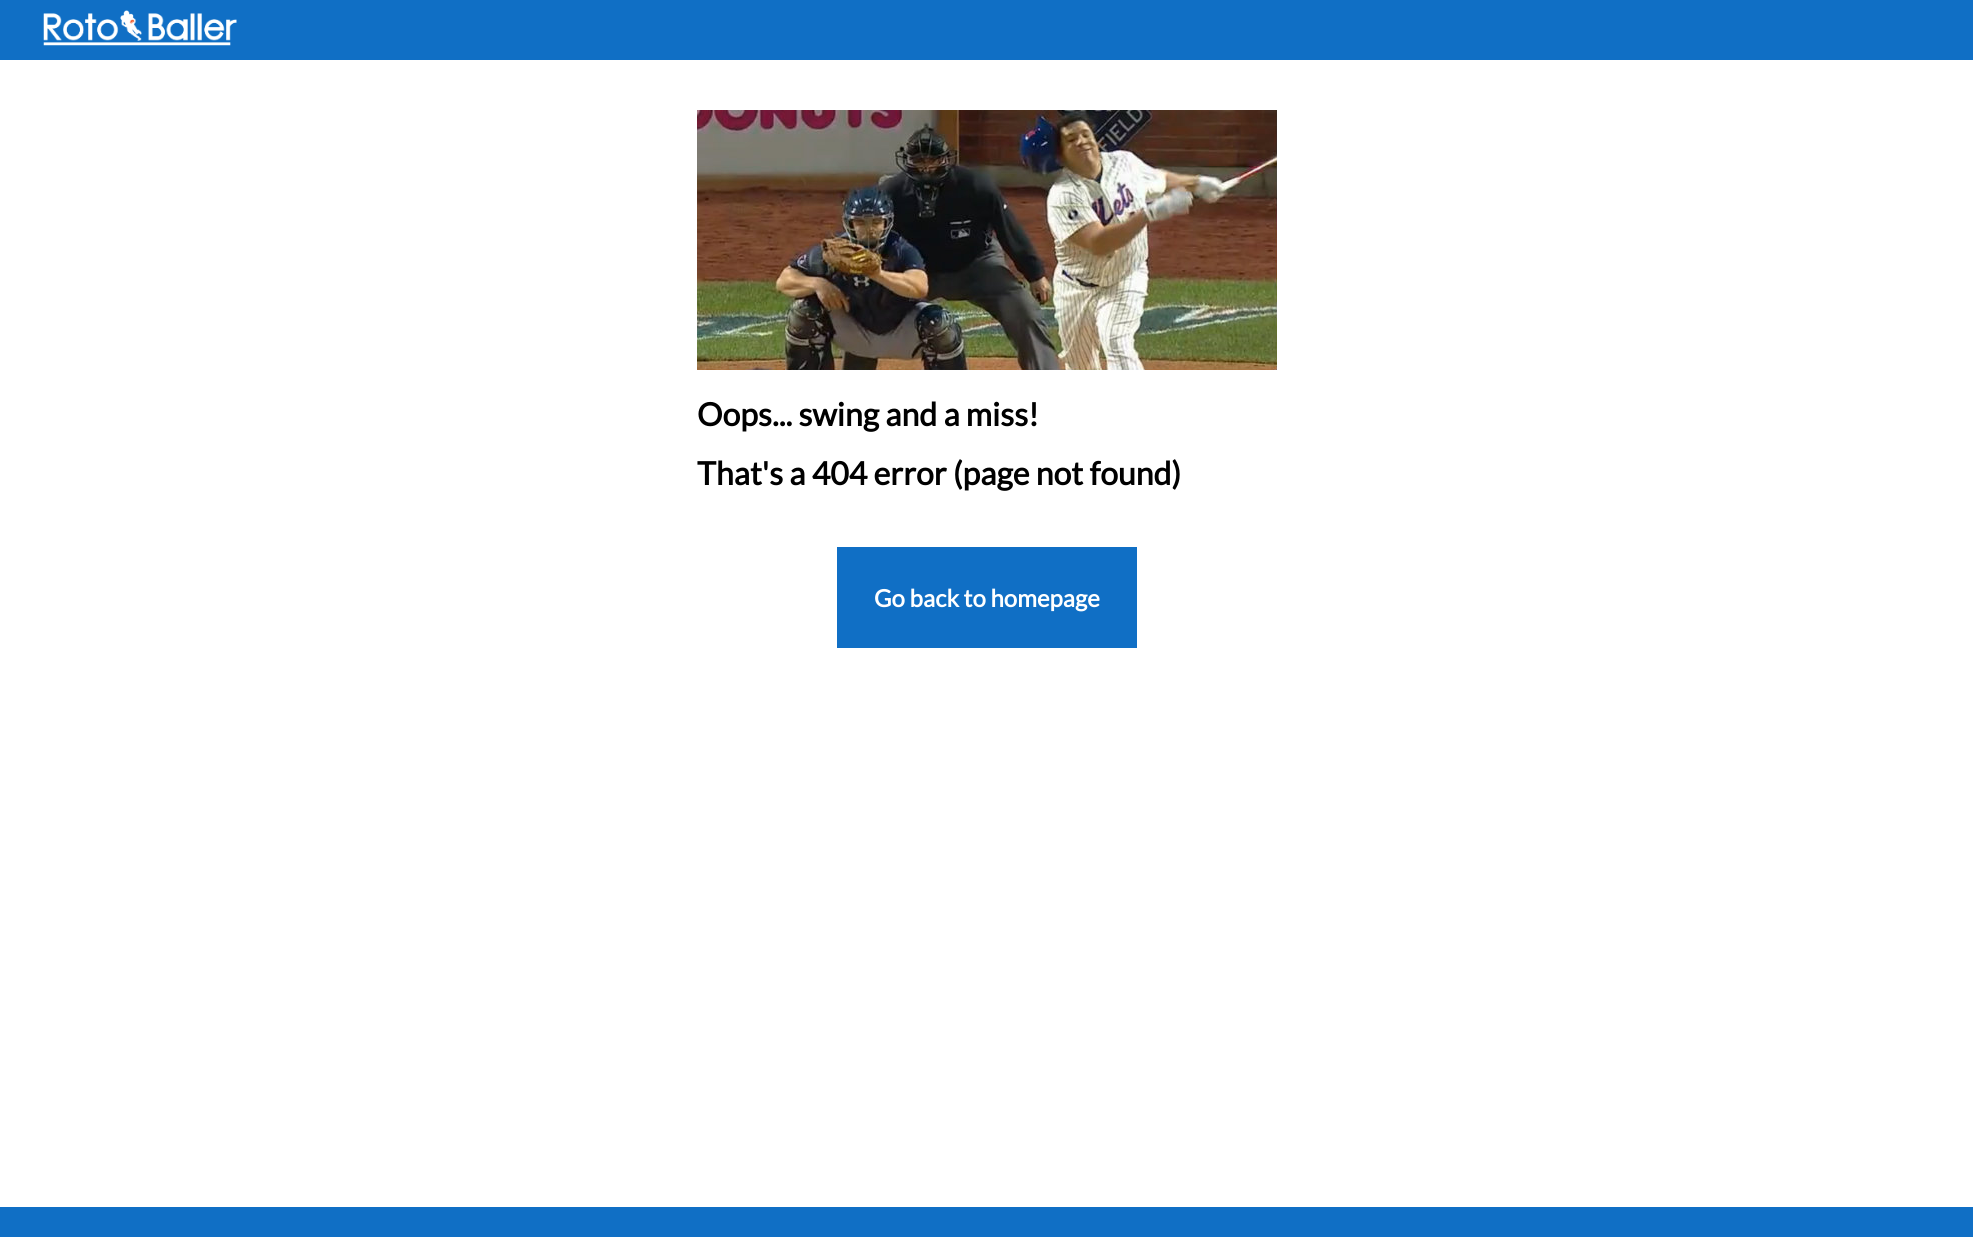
import math
import cairo


def use_color(cr, r, g, b):
  cr.set_source_rgb(r / 255, g / 255, b / 255)

def text(cr, x, y, s, family, size, color, bold=False, italic=False):
  cr.select_font_face(family, cairo.FONT_SLANT_ITALIC if italic else cairo.FONT_SLANT_NORMAL, cairo.FONT_WEIGHT_BOLD if bold else cairo.FONT_WEIGHT_NORMAL)
  cr.set_font_size(size)
  use_color(cr, *color)
  cr.move_to(x, y)
  cr.show_text(s)

def box(cr, x, y, w, h, *color):
  use_color(cr, *color)
  cr.rectangle(x, y, w, h)
  cr.fill()

def picture(cr, path, x, y, w, h):
  cr.save()
  cr.set_source_surface(cairo.ImageSurface.create_from_png(path), x, y)
  cr.rectangle(x, y, w, h)
  cr.fill()
  cr.restore()

def draw(cr):
  use_color(cr, 255, 255, 255)
  cr.paint()
  box(cr, 0, 0, 1973, 60, 16, 111, 197)
  picture(cr, "img_01.png", 43, 10, 194, 36)
  picture(cr, "img_02.png", 697, 110, 580, 260)
  box(cr, 837, 547, 300, 101, 16, 111, 197)
  box(cr, 0, 1207, 1973, 30, 16, 111, 197)
  text(cr, 697, 426, "Oops... swing and a miss!", "Lato", 32, (0, 0, 0), bold=True)
  text(cr, 697, 485, "That's a 404 error (page not found)", "Lato", 32, (0, 0, 0), bold=True)
  text(cr, 874, 607, "Go back to homepage", "Lato", 24, (255, 255, 255), bold=True)


surface = cairo.ImageSurface(cairo.FORMAT_RGB24, 1973, 1237)
cr = cairo.Context(surface)
options = cairo.FontOptions()
options.set_hint_metrics(cairo.HINT_METRICS_OFF)
options.set_hint_style(cairo.HINT_STYLE_NONE)
cr.set_font_options(options)
cr.set_miter_limit(4)
draw(cr)
surface.write_to_png("out.png")
